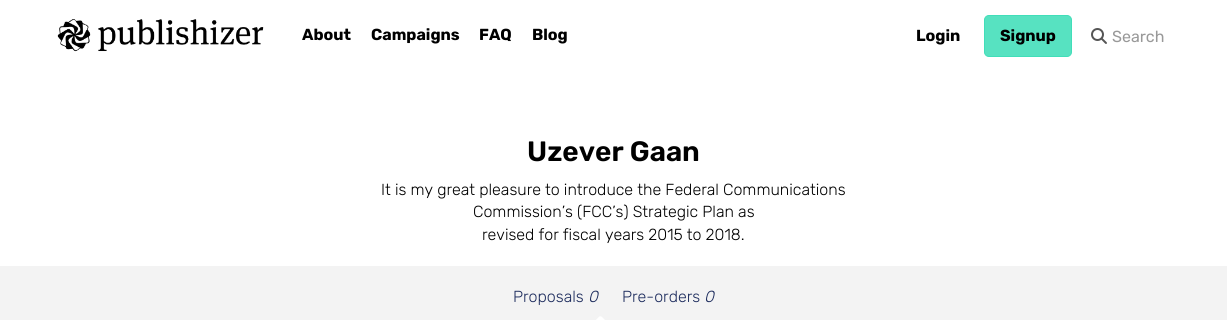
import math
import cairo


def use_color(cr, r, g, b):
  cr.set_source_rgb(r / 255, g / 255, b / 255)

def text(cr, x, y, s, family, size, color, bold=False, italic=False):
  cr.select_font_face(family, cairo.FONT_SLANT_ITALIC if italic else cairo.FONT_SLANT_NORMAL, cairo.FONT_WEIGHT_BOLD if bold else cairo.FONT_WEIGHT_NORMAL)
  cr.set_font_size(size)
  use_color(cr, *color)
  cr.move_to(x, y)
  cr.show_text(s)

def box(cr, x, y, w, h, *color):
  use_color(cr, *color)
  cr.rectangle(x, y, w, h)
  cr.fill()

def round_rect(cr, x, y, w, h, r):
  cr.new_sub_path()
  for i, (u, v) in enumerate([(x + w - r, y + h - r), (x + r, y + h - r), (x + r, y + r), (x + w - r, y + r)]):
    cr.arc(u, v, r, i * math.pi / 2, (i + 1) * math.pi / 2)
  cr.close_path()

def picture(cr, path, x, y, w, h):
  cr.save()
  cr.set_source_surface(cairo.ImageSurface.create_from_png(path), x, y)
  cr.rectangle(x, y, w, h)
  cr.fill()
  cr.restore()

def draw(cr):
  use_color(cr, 255, 255, 255)
  cr.paint()
  picture(cr, "img_01.png", 57, 19, 207, 33)
  use_color(cr, 87, 226, 193)
  round_rect(cr, 984.5, 15.5, 87, 41, 4.5)
  cr.fill_preserve()
  use_color(cr, 65, 222, 185)
  cr.set_line_width(1)
  cr.stroke()
  picture(cr, "img_02.png", 1091, 28, 16, 16)
  box(cr, 0, 266, 1227, 54, 243, 243, 243)
  picture(cr, "img_03.png", 596, 316, 9, 4)
  text(cr, 302, 40, "About", "Rubik", 16, (0, 0, 0), bold=True)
  text(cr, 371, 40, "Campaigns", "Rubik", 16, (0, 0, 0), bold=True)
  text(cr, 479, 40, "FAQ", "Rubik", 16, (0, 0, 0), bold=True)
  text(cr, 532, 40, "Blog", "Rubik", 16, (0, 0, 0), bold=True)
  text(cr, 916, 41, "Login", "Rubik", 16, (0, 0, 0), bold=True)
  text(cr, 1000, 41, "Signup", "Rubik", 16, (0, 0, 0), bold=True)
  text(cr, 1112, 42, "Search", "Rubik", 16, (153, 153, 153))
  text(cr, 527, 161, "Uzever Gaan", "Rubik SemiBold", 28, (0, 0, 0))
  text(cr, 381, 195, "It is my great pleasure to introduce the Federal Communications", "Rubik Light", 16, (0, 0, 0))
  text(cr, 473, 217, "Commission’s (FCC’s) Strategic Plan as", "Rubik Light", 16, (0, 0, 0))
  text(cr, 482, 240, "revised for fiscal years 2015 to 2018.", "Rubik Light", 16, (0, 0, 0))
  text(cr, 513, 302, "Proposals", "Rubik Light", 16, (30, 45, 94))
  text(cr, 588, 302, "0", "Rubik Light", 16, (30, 45, 94), italic=True)
  text(cr, 622, 302, "Pre-orders", "Rubik Light", 16, (30, 45, 94))
  text(cr, 704, 302, "0", "Rubik Light", 16, (30, 45, 94), italic=True)


surface = cairo.ImageSurface(cairo.FORMAT_RGB24, 1227, 320)
cr = cairo.Context(surface)
options = cairo.FontOptions()
options.set_hint_metrics(cairo.HINT_METRICS_OFF)
options.set_hint_style(cairo.HINT_STYLE_NONE)
cr.set_font_options(options)
cr.set_miter_limit(4)
draw(cr)
surface.write_to_png("out.png")
